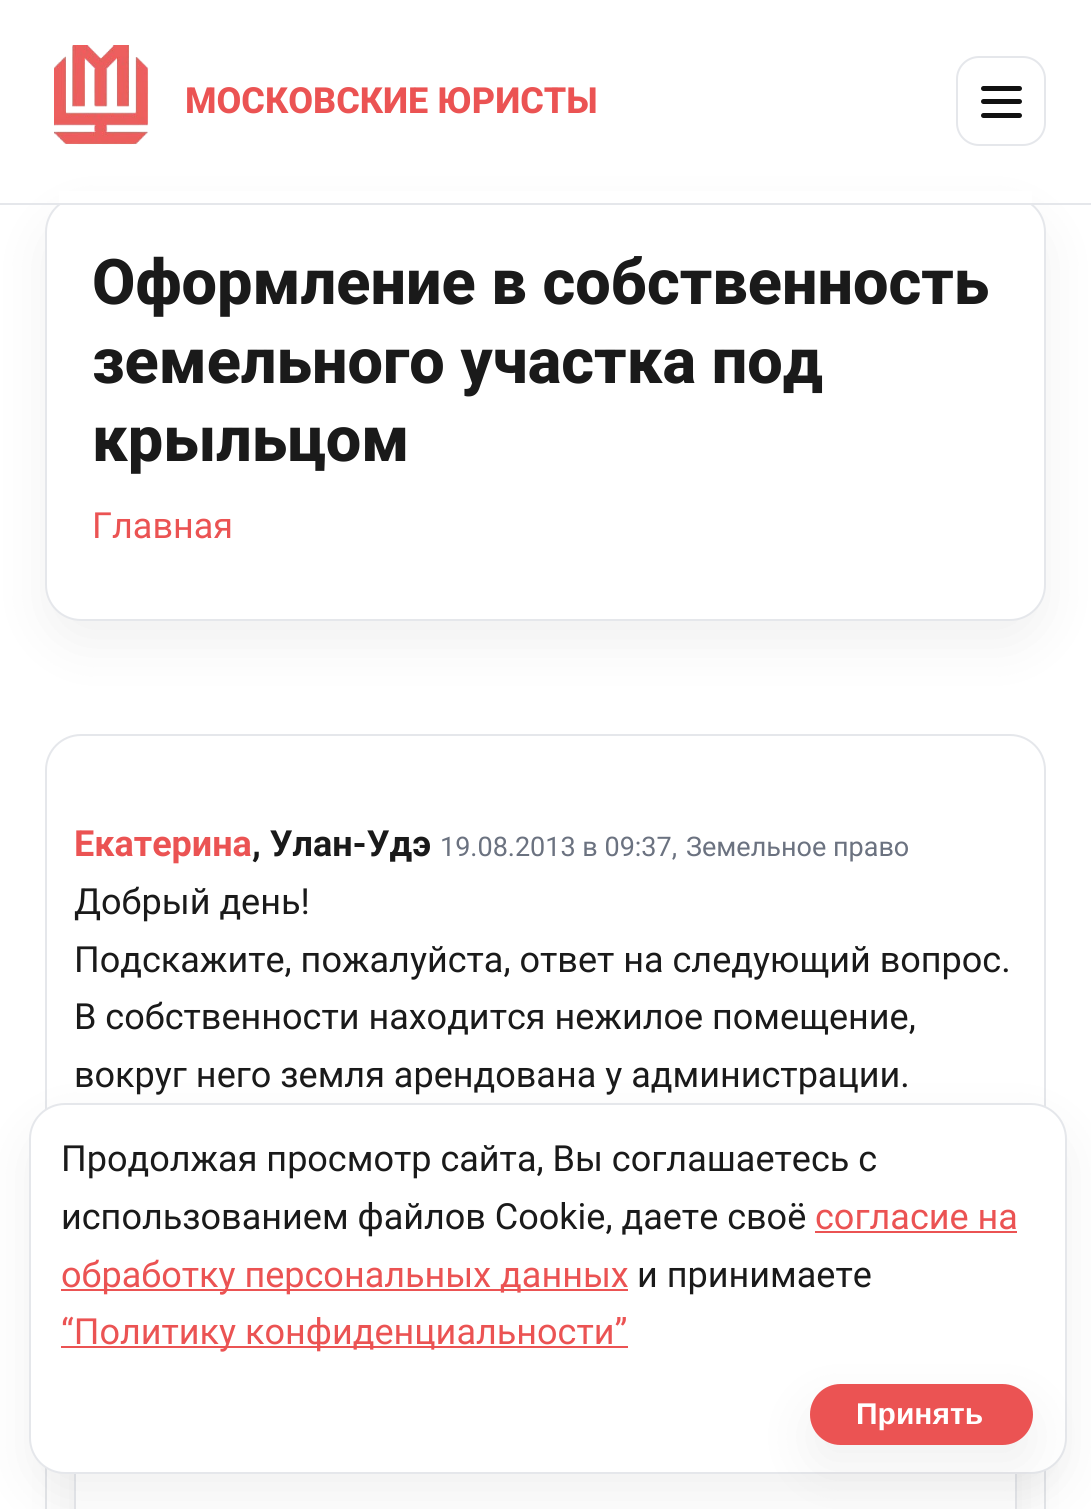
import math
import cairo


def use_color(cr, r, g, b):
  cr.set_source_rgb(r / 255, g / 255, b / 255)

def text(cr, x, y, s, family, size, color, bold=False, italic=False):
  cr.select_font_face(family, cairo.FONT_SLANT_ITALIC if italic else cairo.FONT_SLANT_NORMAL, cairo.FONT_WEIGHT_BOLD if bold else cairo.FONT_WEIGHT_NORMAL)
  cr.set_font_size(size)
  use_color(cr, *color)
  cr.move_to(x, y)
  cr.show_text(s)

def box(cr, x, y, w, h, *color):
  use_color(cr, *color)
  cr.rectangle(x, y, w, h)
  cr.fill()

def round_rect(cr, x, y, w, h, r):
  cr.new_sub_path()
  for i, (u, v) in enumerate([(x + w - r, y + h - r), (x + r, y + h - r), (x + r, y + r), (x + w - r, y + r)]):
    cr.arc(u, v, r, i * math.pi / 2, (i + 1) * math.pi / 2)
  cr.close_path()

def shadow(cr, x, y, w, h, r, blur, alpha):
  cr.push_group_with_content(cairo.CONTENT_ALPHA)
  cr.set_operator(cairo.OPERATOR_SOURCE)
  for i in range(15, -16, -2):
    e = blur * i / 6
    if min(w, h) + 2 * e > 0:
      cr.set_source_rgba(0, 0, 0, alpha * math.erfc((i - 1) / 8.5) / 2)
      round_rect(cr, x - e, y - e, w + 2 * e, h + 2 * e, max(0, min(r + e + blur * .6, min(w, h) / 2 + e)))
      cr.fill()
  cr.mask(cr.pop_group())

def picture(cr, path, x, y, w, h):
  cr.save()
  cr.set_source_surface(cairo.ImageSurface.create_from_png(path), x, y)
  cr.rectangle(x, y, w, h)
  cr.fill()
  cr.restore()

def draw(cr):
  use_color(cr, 255, 255, 255)
  cr.paint()
  use_color(cr, 0, 0, 0)
  shadow(cr, 45, 218, 1001, 426, 36, 28, 0.06)
  use_color(cr, 255, 255, 255)
  round_rect(cr, 46, 197, 999, 423, 35)
  cr.fill_preserve()
  use_color(cr, 229, 231, 235)
  cr.stroke()
  box(cr, 59, 191, 973, 12, 255, 255, 255)
  box(cr, 0, 203, 1091, 2, 229, 231, 235)
  picture(cr, "img_01.png", 54, 45, 95, 100)
  round_rect(cr, 957, 57, 88, 88, 22)
  cr.stroke()
  use_color(cr, 17, 17, 17)
  round_rect(cr, 981, 99, 41, 5, 2.5)
  cr.fill()
  round_rect(cr, 981, 86, 41, 5, 2.5)
  cr.fill()
  round_rect(cr, 981, 113, 41, 5, 2.5)
  cr.fill()
  round_rect(cr, 46, 735, 999, 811, 35)
  use_color(cr, 229, 231, 235)
  cr.stroke()
  use_color(cr, 0, 0, 0)
  shadow(cr, 74, 1424, 943, 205, 36, 28, 0.06)
  box(cr, 76, 1474, 939, 35, 255, 255, 255)
  cr.rectangle(75, 1403, 941, 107)
  use_color(cr, 229, 231, 235)
  cr.stroke()
  use_color(cr, 0, 0, 0)
  shadow(cr, 29, 1125, 1038, 371, 36, 28, 0.06)
  use_color(cr, 255, 255, 255)
  round_rect(cr, 30, 1104, 1036, 369, 35)
  cr.fill_preserve()
  use_color(cr, 229, 231, 235)
  cr.stroke()
  box(cr, 815, 1231, 202, 2, 235, 83, 83)
  box(cr, 61, 1289, 567, 2, 235, 83, 83)
  box(cr, 61, 1346, 567, 2, 235, 83, 83)
  use_color(cr, 0, 0, 0)
  shadow(cr, 810, 1406, 223, 61, 30.5, 28, 0.06)
  use_color(cr, 235, 83, 83)
  round_rect(cr, 811, 1385, 221, 59, 29.5)
  cr.fill_preserve()
  cr.stroke()
  text(cr, 185, 113, "МОСКОВСКИЕ ЮРИСТЫ", "Roboto ExtraBold", 36, (235, 83, 83))
  text(cr, 92, 304, "Оформление в собственность", "Roboto ExtraBold", 63, (26, 26, 26))
  text(cr, 92, 383, "земельного участка под", "Roboto ExtraBold", 63, (26, 26, 26))
  text(cr, 92, 461, "крыльцом", "Roboto ExtraBold", 63, (26, 26, 26))
  text(cr, 92, 538, "Главная", "Roboto", 36, (235, 83, 83))
  text(cr, 74, 856, "Екатерина", "Roboto", 36, (235, 83, 83), bold=True)
  text(cr, 252, 856, ", Улан-Удэ", "Roboto", 36, (26, 26, 26), bold=True)
  text(cr, 440, 856, "19.08.2013 в 09:37,", "Roboto", 27, (107, 114, 128))
  text(cr, 686, 856, "Земельное право", "Roboto", 27, (107, 114, 128))
  text(cr, 74, 914, "Добрый день!", "Roboto", 36, (26, 26, 26))
  text(cr, 74, 972, "Подскажите, пожалуйста, ответ на следующий вопрос.", "Roboto", 36, (26, 26, 26))
  text(cr, 74, 1029, "В собственности находится нежилое помещение,", "Roboto", 36, (26, 26, 26))
  text(cr, 74, 1087, "вокруг него земля арендована у администрации.", "Roboto", 36, (26, 26, 26))
  text(cr, 61, 1171, "Продолжая просмотр сайта, Вы соглашаетесь с", "Roboto", 36, (26, 26, 26))
  text(cr, 61, 1229, "использованием файлов Cookie, даете своё", "Roboto", 36, (26, 26, 26))
  text(cr, 815, 1229, "согласие на", "Roboto", 36, (235, 83, 83))
  text(cr, 61, 1287, "обработку персональных данных", "Roboto", 36, (235, 83, 83))
  text(cr, 637, 1287, "и принимаете", "Roboto", 36, (26, 26, 26))
  text(cr, 61, 1344, "“Политику конфиденциальности”", "Roboto", 36, (235, 83, 83))
  text(cr, 856, 1424, "Принять", "Liberation Sans", 30, (255, 255, 255), bold=True)


surface = cairo.ImageSurface(cairo.FORMAT_RGB24, 1091, 1509)
cr = cairo.Context(surface)
options = cairo.FontOptions()
options.set_hint_metrics(cairo.HINT_METRICS_OFF)
options.set_hint_style(cairo.HINT_STYLE_NONE)
cr.set_font_options(options)
cr.set_miter_limit(4)
draw(cr)
surface.write_to_png("out.png")
